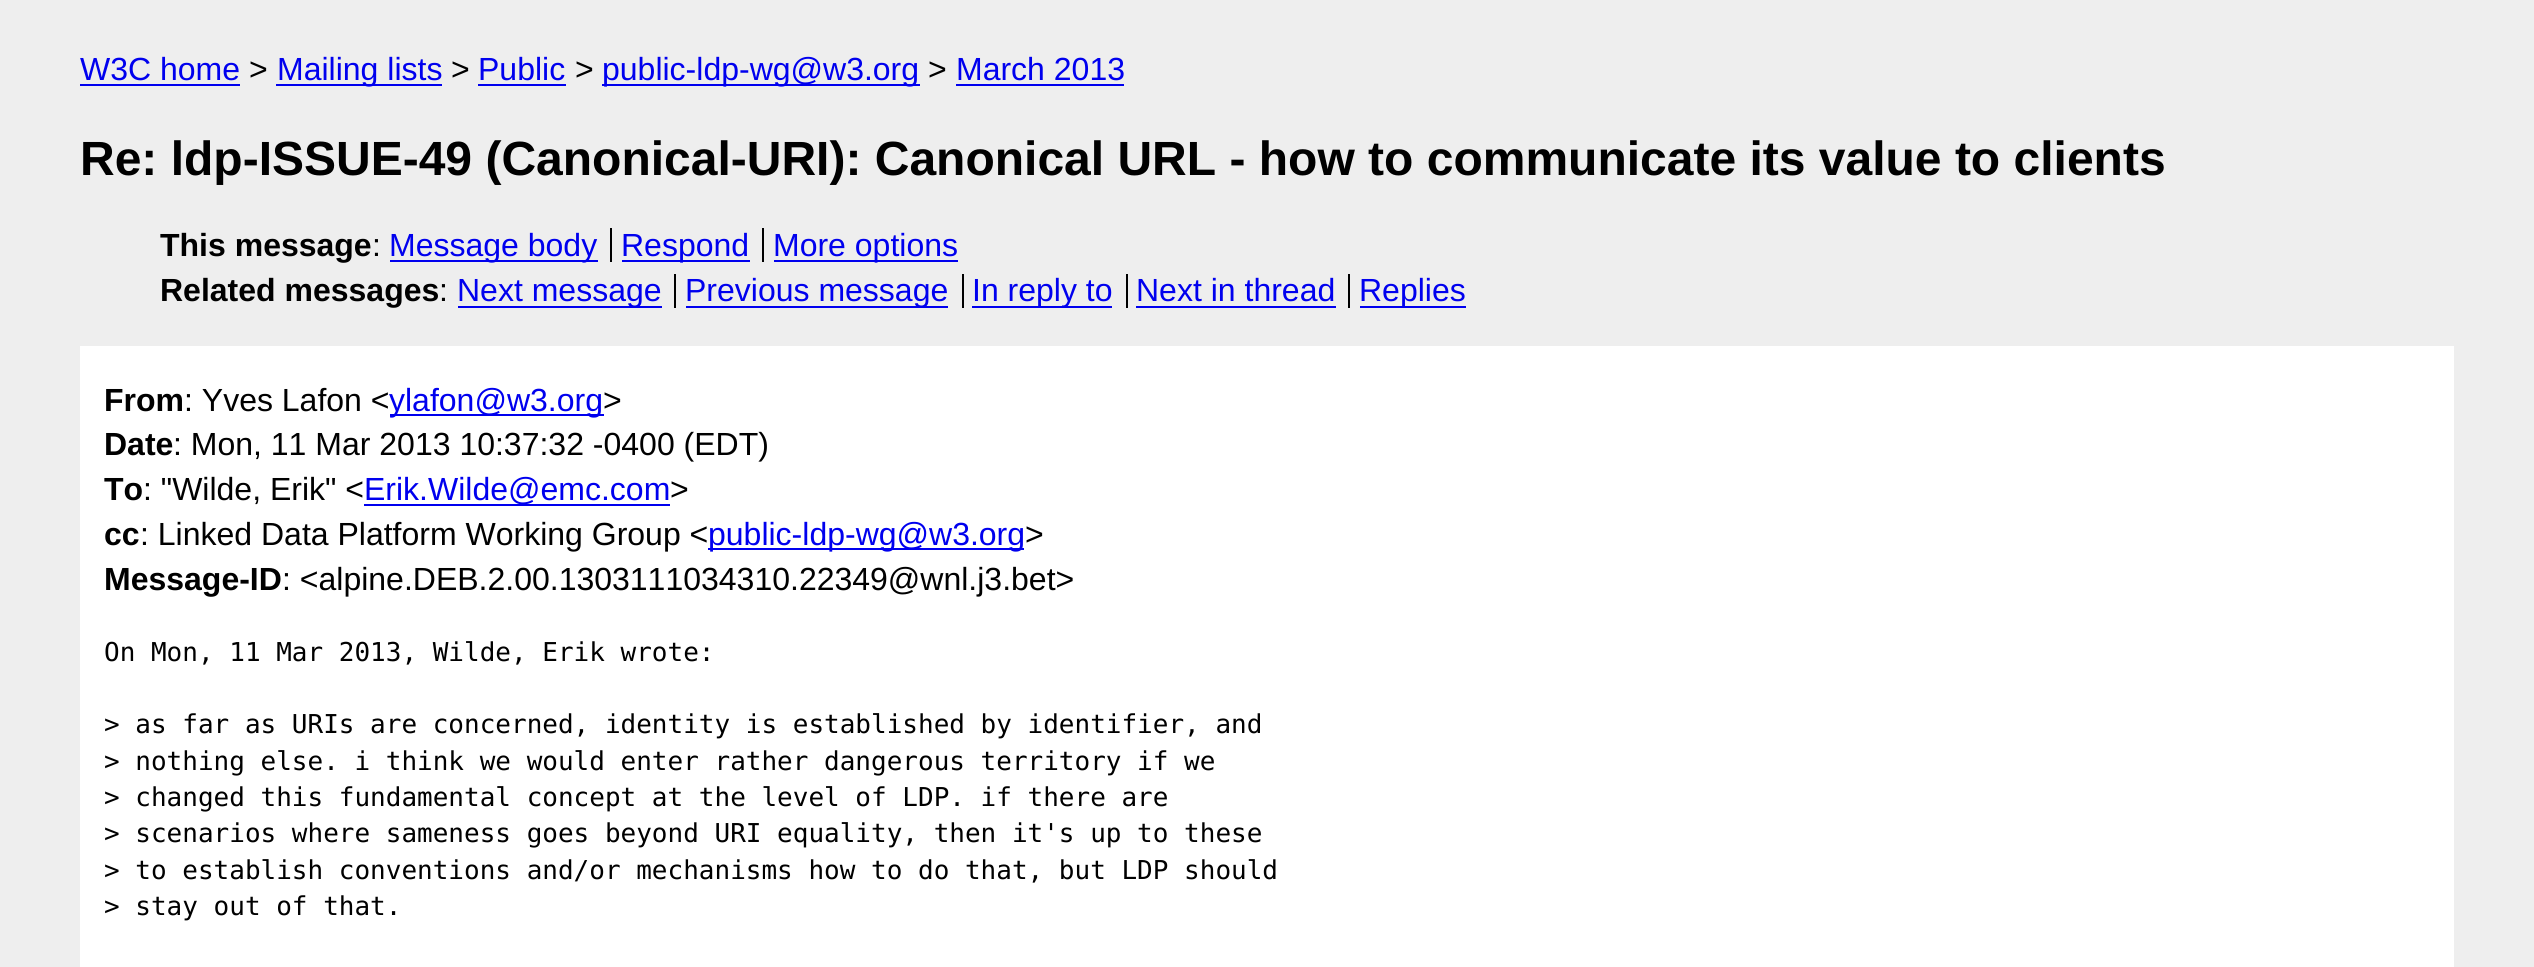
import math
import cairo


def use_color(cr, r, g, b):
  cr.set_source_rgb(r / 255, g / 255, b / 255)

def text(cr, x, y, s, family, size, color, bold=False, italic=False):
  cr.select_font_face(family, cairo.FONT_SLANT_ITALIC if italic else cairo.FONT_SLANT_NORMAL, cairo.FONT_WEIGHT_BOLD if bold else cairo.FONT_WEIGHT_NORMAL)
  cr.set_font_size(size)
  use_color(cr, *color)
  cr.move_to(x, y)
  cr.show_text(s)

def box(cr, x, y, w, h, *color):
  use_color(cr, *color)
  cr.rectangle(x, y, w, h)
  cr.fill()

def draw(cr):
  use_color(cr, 238, 238, 238)
  cr.paint()
  box(cr, 80, 84, 160, 2, 0, 0, 238)
  box(cr, 276, 84, 166, 2, 0, 0, 238)
  box(cr, 478, 84, 88, 2, 0, 0, 238)
  box(cr, 602, 84, 318, 2, 0, 0, 238)
  box(cr, 956, 84, 168, 2, 0, 0, 238)
  box(cr, 390, 260, 208, 2, 0, 0, 238)
  box(cr, 610, 228, 2, 34, 0, 0, 0)
  box(cr, 622, 260, 128, 2, 0, 0, 238)
  box(cr, 762, 228, 2, 34, 0, 0, 0)
  box(cr, 774, 260, 184, 2, 0, 0, 238)
  box(cr, 458, 306, 204, 2, 0, 0, 238)
  box(cr, 674, 274, 2, 34, 0, 0, 0)
  box(cr, 686, 306, 262, 2, 0, 0, 238)
  box(cr, 962, 274, 2, 34, 0, 0, 0)
  box(cr, 972, 306, 140, 2, 0, 0, 238)
  box(cr, 1126, 274, 2, 34, 0, 0, 0)
  box(cr, 1136, 306, 200, 2, 0, 0, 238)
  box(cr, 1348, 274, 2, 34, 0, 0, 0)
  box(cr, 1360, 306, 106, 2, 0, 0, 238)
  box(cr, 80, 346, 2374, 621, 255, 255, 255)
  box(cr, 390, 414, 214, 2, 0, 0, 238)
  box(cr, 364, 504, 306, 2, 0, 0, 238)
  box(cr, 708, 548, 316, 2, 0, 0, 238)
  text(cr, 80, 80, "W3C home", "Liberation Sans", 32, (0, 0, 238))
  text(cr, 249, 80, ">", "Liberation Sans", 32, (0, 0, 0))
  text(cr, 277, 80, "Mailing lists", "Liberation Sans", 32, (0, 0, 238))
  text(cr, 451, 80, ">", "Liberation Sans", 32, (0, 0, 0))
  text(cr, 478, 80, "Public", "Liberation Sans", 32, (0, 0, 238))
  text(cr, 575, 80, ">", "Liberation Sans", 32, (0, 0, 0))
  text(cr, 602, 80, "public-ldp-wg@w3.org", "Liberation Sans", 32, (0, 0, 238))
  text(cr, 928, 80, ">", "Liberation Sans", 32, (0, 0, 0))
  text(cr, 956, 80, "March 2013", "Liberation Sans", 32, (0, 0, 238))
  text(cr, 80, 175, "Re: ldp-ISSUE-49 (Canonical-URI): Canonical URL - how to communicate its value to clients", "Liberation Sans", 48, (0, 0, 0), bold=True)
  text(cr, 160, 256, "This message", "Liberation Sans", 32, (0, 0, 0), bold=True)
  text(cr, 372, 256, ":", "Liberation Sans", 32, (0, 0, 0))
  text(cr, 389, 256, "Message body", "Liberation Sans", 32, (0, 0, 238))
  text(cr, 621, 256, "Respond", "Liberation Sans", 32, (0, 0, 238))
  text(cr, 773, 256, "More options", "Liberation Sans", 32, (0, 0, 238))
  text(cr, 160, 301, "Related messages", "Liberation Sans", 32, (0, 0, 0), bold=True)
  text(cr, 439, 301, ":", "Liberation Sans", 32, (0, 0, 0))
  text(cr, 457, 301, "Next message", "Liberation Sans", 32, (0, 0, 238))
  text(cr, 685, 301, "Previous message", "Liberation Sans", 32, (0, 0, 238))
  text(cr, 972, 301, "In reply to", "Liberation Sans", 32, (0, 0, 238))
  text(cr, 1136, 301, "Next in thread", "Liberation Sans", 32, (0, 0, 238))
  text(cr, 1359, 301, "Replies", "Liberation Sans", 32, (0, 0, 238))
  text(cr, 104, 411, "From", "Liberation Sans", 32, (0, 0, 0), bold=True)
  text(cr, 184, 411, ": Yves Lafon <", "Liberation Sans", 32, (0, 0, 0))
  text(cr, 389, 411, "ylafon@w3.org", "Liberation Sans", 32, (0, 0, 238))
  text(cr, 603, 411, ">", "Liberation Sans", 32, (0, 0, 0))
  text(cr, 104, 455, "Date", "Liberation Sans", 32, (0, 0, 0), bold=True)
  text(cr, 173, 455, ": Mon, 11 Mar 2013 10:37:32 -0400 (EDT)", "Liberation Sans", 32, (0, 0, 0))
  text(cr, 104, 500, "To", "Liberation Sans", 32, (0, 0, 0), bold=True)
  text(cr, 143, 500, ": \"Wilde, Erik\" <", "Liberation Sans", 32, (0, 0, 0))
  text(cr, 364, 500, "Erik.Wilde@emc.com", "Liberation Sans", 32, (0, 0, 238))
  text(cr, 670, 500, ">", "Liberation Sans", 32, (0, 0, 0))
  text(cr, 104, 545, "cc", "Liberation Sans", 32, (0, 0, 0), bold=True)
  text(cr, 140, 545, ": Linked Data Platform Working Group <", "Liberation Sans", 32, (0, 0, 0))
  text(cr, 708, 545, "public-ldp-wg@w3.org", "Liberation Sans", 32, (0, 0, 238))
  text(cr, 1025, 545, ">", "Liberation Sans", 32, (0, 0, 0))
  text(cr, 104, 590, "Message-ID", "Liberation Sans", 32, (0, 0, 0), bold=True)
  text(cr, 282, 590, ": <alpine.DEB.2.00.1303111034310.22349@wnl.j3.bet>", "Liberation Sans", 32, (0, 0, 0))
  text(cr, 104, 661, "On Mon, 11 Mar 2013, Wilde, Erik wrote:", "DejaVu Sans Mono", 26, (0, 0, 0))
  text(cr, 104, 733, "> as far as URIs are concerned, identity is established by identifier, and", "DejaVu Sans Mono", 26, (0, 0, 0))
  text(cr, 104, 770, "> nothing else. i think we would enter rather dangerous territory if we", "DejaVu Sans Mono", 26, (0, 0, 0))
  text(cr, 104, 806, "> changed this fundamental concept at the level of LDP. if there are", "DejaVu Sans Mono", 26, (0, 0, 0))
  text(cr, 104, 842, "> scenarios where sameness goes beyond URI equality, then it's up to these", "DejaVu Sans Mono", 26, (0, 0, 0))
  text(cr, 104, 879, "> to establish conventions and/or mechanisms how to do that, but LDP should", "DejaVu Sans Mono", 26, (0, 0, 0))
  text(cr, 104, 915, "> stay out of that.", "DejaVu Sans Mono", 26, (0, 0, 0))


surface = cairo.ImageSurface(cairo.FORMAT_RGB24, 2534, 967)
cr = cairo.Context(surface)
options = cairo.FontOptions()
options.set_hint_metrics(cairo.HINT_METRICS_OFF)
options.set_hint_style(cairo.HINT_STYLE_NONE)
cr.set_font_options(options)
cr.set_miter_limit(4)
draw(cr)
surface.write_to_png("out.png")
